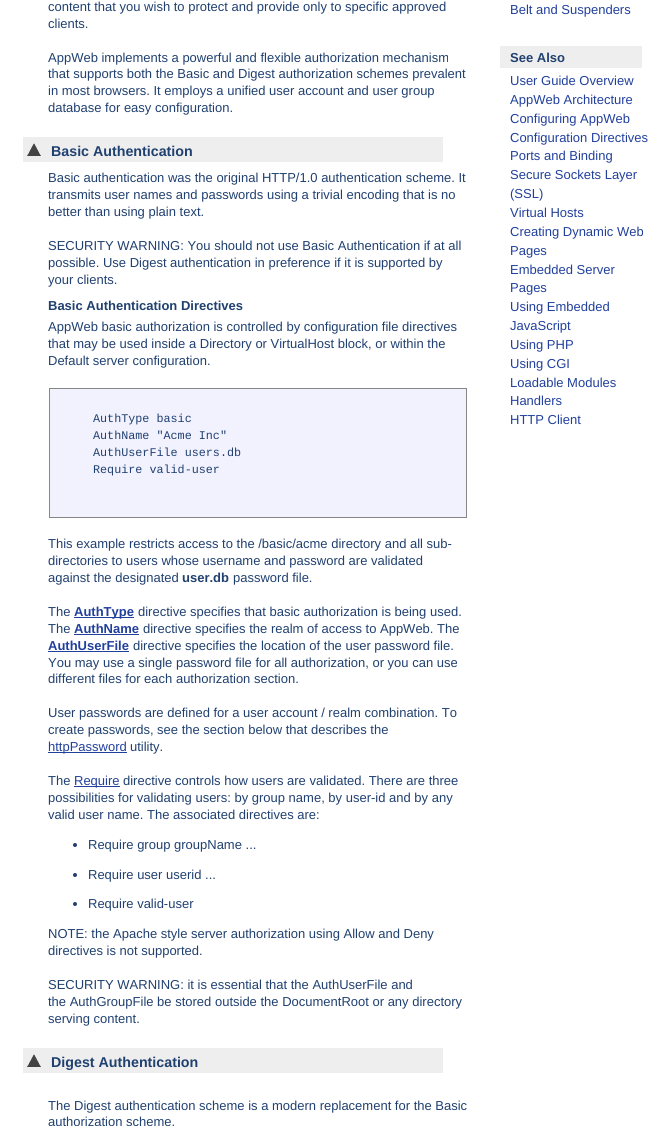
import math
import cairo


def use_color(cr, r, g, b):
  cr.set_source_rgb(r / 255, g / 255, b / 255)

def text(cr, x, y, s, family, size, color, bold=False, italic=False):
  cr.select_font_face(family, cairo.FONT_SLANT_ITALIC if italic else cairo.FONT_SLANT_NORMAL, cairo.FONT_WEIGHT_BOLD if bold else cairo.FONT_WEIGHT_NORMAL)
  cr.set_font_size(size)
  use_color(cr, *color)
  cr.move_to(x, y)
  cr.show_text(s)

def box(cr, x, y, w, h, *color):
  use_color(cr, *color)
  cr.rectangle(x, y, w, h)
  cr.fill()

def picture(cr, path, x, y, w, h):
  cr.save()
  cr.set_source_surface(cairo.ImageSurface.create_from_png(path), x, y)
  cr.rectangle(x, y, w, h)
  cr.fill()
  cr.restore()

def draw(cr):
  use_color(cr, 255, 255, 255)
  cr.paint()
  box(cr, 23, 137, 420, 25, 238, 238, 238)
  picture(cr, "img_01.png", 27, 143, 14, 13)
  use_color(cr, 242, 242, 255)
  cr.rectangle(49.5, 388.5, 417, 129)
  cr.fill_preserve()
  use_color(cr, 134, 134, 134)
  cr.set_line_width(1)
  cr.stroke()
  box(cr, 74, 617, 60, 1, 33, 64, 156)
  box(cr, 74, 634, 65, 1, 33, 64, 156)
  box(cr, 48, 651, 81, 1, 33, 64, 156)
  box(cr, 48, 752, 79, 1, 33, 64, 156)
  box(cr, 74, 786, 46, 1, 33, 64, 156)
  use_color(cr, 32, 64, 112)
  cr.arc(75, 845, 2, 0, 2 * math.pi)
  cr.fill()
  cr.arc(75, 875, 2, 0, 2 * math.pi)
  cr.fill()
  cr.arc(75, 904, 2, 0, 2 * math.pi)
  cr.fill()
  box(cr, 23, 1048, 420, 25, 238, 238, 238)
  picture(cr, "img_01.png", 27, 1054, 14, 13)
  box(cr, 500, 46, 142, 22, 238, 238, 238)
  text(cr, 48, 11, "content that you wish to protect and provide only to specific approved", "Liberation Sans", 13, (32, 64, 112))
  text(cr, 48, 28, "clients.", "Liberation Sans", 13, (32, 64, 112))
  text(cr, 48, 62, "AppWeb implements a powerful and flexible authorization mechanism", "Liberation Sans", 13, (32, 64, 112))
  text(cr, 48, 78, "that supports both the Basic and Digest authorization schemes prevalent", "Liberation Sans", 13, (32, 64, 112))
  text(cr, 48, 95, "in most browsers. It employs a unified user account and user group", "Liberation Sans", 13, (32, 64, 112))
  text(cr, 48, 112, "database for easy configuration.", "Liberation Sans", 13, (32, 64, 112))
  text(cr, 51, 156, "Basic Authentication", "Liberation Sans", 14.25, (32, 64, 112), bold=True)
  text(cr, 48, 182, "Basic authentication was the original HTTP/1.0 authentication scheme. It", "Liberation Sans", 13, (32, 64, 112))
  text(cr, 48, 199, "transmits user names and passwords using a trivial encoding that is no", "Liberation Sans", 13, (32, 64, 112))
  text(cr, 48, 216, "better than using plain text.", "Liberation Sans", 13, (32, 64, 112))
  text(cr, 48, 250, "SECURITY WARNING: You should not use Basic Authentication if at all", "Liberation Sans", 13, (32, 64, 112))
  text(cr, 48, 267, "possible. Use Digest authentication in preference if it is supported by", "Liberation Sans", 13, (32, 64, 112))
  text(cr, 48, 284, "your clients.", "Liberation Sans", 13, (32, 64, 112))
  text(cr, 48, 310, "Basic Authentication Directives", "Liberation Sans", 13, (32, 64, 112), bold=True)
  text(cr, 48, 331, "AppWeb basic authorization is controlled by configuration file directives", "Liberation Sans", 13, (32, 64, 112))
  text(cr, 48, 348, "that may be used inside a Directory or VirtualHost block, or within the", "Liberation Sans", 13, (32, 64, 112))
  text(cr, 48, 365, "Default server configuration.", "Liberation Sans", 13, (32, 64, 112))
  text(cr, 93, 422, "AuthType basic", "Liberation Mono", 11.75, (32, 64, 112))
  text(cr, 93, 439, "AuthName \"Acme Inc\"", "Liberation Mono", 11.75, (32, 64, 112))
  text(cr, 93, 456, "AuthUserFile users.db", "Liberation Mono", 11.75, (32, 64, 112))
  text(cr, 93, 473, "Require valid-user", "Liberation Mono", 11.75, (32, 64, 112))
  text(cr, 48, 548, "This example restricts access to the /basic/acme directory and all sub-", "Liberation Sans", 13, (32, 64, 112))
  text(cr, 48, 565, "directories to users whose username and password are validated", "Liberation Sans", 13, (32, 64, 112))
  text(cr, 48, 582, "against the designated", "Liberation Sans", 13, (32, 64, 112))
  text(cr, 182, 582, "user.db", "Liberation Sans", 13, (32, 64, 112), bold=True)
  text(cr, 233, 582, "password file.", "Liberation Sans", 13, (32, 64, 112))
  text(cr, 48, 616, "The", "Liberation Sans", 13, (32, 64, 112))
  text(cr, 74, 616, "AuthType", "Liberation Sans", 13, (33, 64, 156), bold=True)
  text(cr, 138, 616, "directive specifies that basic authorization is being used.", "Liberation Sans", 13, (32, 64, 112))
  text(cr, 48, 633, "The", "Liberation Sans", 13, (32, 64, 112))
  text(cr, 74, 633, "AuthName", "Liberation Sans", 13, (33, 64, 156), bold=True)
  text(cr, 143, 633, "directive specifies the realm of access to AppWeb. The", "Liberation Sans", 13, (32, 64, 112))
  text(cr, 48, 650, "AuthUserFile", "Liberation Sans", 13, (33, 64, 156), bold=True)
  text(cr, 133, 650, "directive specifies the location of the user password file.", "Liberation Sans", 13, (32, 64, 112))
  text(cr, 48, 667, "You may use a single password file for all authorization, or you can use", "Liberation Sans", 13, (32, 64, 112))
  text(cr, 48, 683, "different files for each authorization section.", "Liberation Sans", 13, (32, 64, 112))
  text(cr, 48, 717, "User passwords are defined for a user account / realm combination. To", "Liberation Sans", 13, (32, 64, 112))
  text(cr, 48, 734, "create passwords, see the section below that describes the", "Liberation Sans", 13, (32, 64, 112))
  text(cr, 48, 751, "httpPassword", "Liberation Sans", 13, (33, 64, 156))
  text(cr, 130, 751, "utility.", "Liberation Sans", 13, (32, 64, 112))
  text(cr, 48, 785, "The", "Liberation Sans", 13, (32, 64, 112))
  text(cr, 74, 785, "Require", "Liberation Sans", 13, (33, 64, 156))
  text(cr, 123, 785, "directive controls how users are validated. There are three", "Liberation Sans", 13, (32, 64, 112))
  text(cr, 48, 802, "possibilities for validating users: by group name, by user-id and by any", "Liberation Sans", 13, (32, 64, 112))
  text(cr, 48, 819, "valid user name. The associated directives are:", "Liberation Sans", 13, (32, 64, 112))
  text(cr, 88, 849, "Require group groupName ...", "Liberation Sans", 13, (32, 64, 112))
  text(cr, 88, 879, "Require user userid ...", "Liberation Sans", 13, (32, 64, 112))
  text(cr, 88, 908, "Require valid-user", "Liberation Sans", 13, (32, 64, 112))
  text(cr, 48, 938, "NOTE: the Apache style server authorization using Allow and Deny", "Liberation Sans", 13, (32, 64, 112))
  text(cr, 48, 955, "directives is not supported.", "Liberation Sans", 13, (32, 64, 112))
  text(cr, 48, 989, "SECURITY WARNING: it is essential that the AuthUserFile and", "Liberation Sans", 13, (32, 64, 112))
  text(cr, 48, 1006, "the AuthGroupFile be stored outside the DocumentRoot or any directory", "Liberation Sans", 13, (32, 64, 112))
  text(cr, 48, 1023, "serving content.", "Liberation Sans", 13, (32, 64, 112))
  text(cr, 51, 1067, "Digest Authentication", "Liberation Sans", 14.25, (32, 64, 112), bold=True)
  text(cr, 48, 1110, "The Digest authentication scheme is a modern replacement for the Basic", "Liberation Sans", 13, (32, 64, 112))
  text(cr, 48, 1126, "authorization scheme.", "Liberation Sans", 13, (32, 64, 112))
  text(cr, 510, 14, "Belt and Suspenders", "Liberation Sans", 13, (33, 64, 156))
  text(cr, 510, 62, "See Also", "Liberation Sans", 13, (32, 64, 112), bold=True)
  text(cr, 510, 85, "User Guide Overview", "Liberation Sans", 13, (33, 64, 156))
  text(cr, 510, 104, "AppWeb Architecture", "Liberation Sans", 13, (33, 64, 156))
  text(cr, 510, 123, "Configuring AppWeb", "Liberation Sans", 13, (33, 64, 156))
  text(cr, 510, 142, "Configuration Directives", "Liberation Sans", 13, (33, 64, 156))
  text(cr, 510, 160, "Ports and Binding", "Liberation Sans", 13, (33, 64, 156))
  text(cr, 510, 179, "Secure Sockets Layer", "Liberation Sans", 13, (33, 64, 156))
  text(cr, 510, 198, "(SSL)", "Liberation Sans", 13, (33, 64, 156))
  text(cr, 510, 217, "Virtual Hosts", "Liberation Sans", 13, (33, 64, 156))
  text(cr, 510, 236, "Creating Dynamic Web", "Liberation Sans", 13, (33, 64, 156))
  text(cr, 510, 255, "Pages", "Liberation Sans", 13, (33, 64, 156))
  text(cr, 510, 274, "Embedded Server", "Liberation Sans", 13, (33, 64, 156))
  text(cr, 510, 292, "Pages", "Liberation Sans", 13, (33, 64, 156))
  text(cr, 510, 311, "Using Embedded", "Liberation Sans", 13, (33, 64, 156))
  text(cr, 510, 330, "JavaScript", "Liberation Sans", 13, (33, 64, 156))
  text(cr, 510, 349, "Using PHP", "Liberation Sans", 13, (33, 64, 156))
  text(cr, 510, 368, "Using CGI", "Liberation Sans", 13, (33, 64, 156))
  text(cr, 510, 387, "Loadable Modules", "Liberation Sans", 13, (33, 64, 156))
  text(cr, 510, 405, "Handlers", "Liberation Sans", 13, (33, 64, 156))
  text(cr, 510, 424, "HTTP Client", "Liberation Sans", 13, (33, 64, 156))


surface = cairo.ImageSurface(cairo.FORMAT_RGB24, 662, 1126)
cr = cairo.Context(surface)
options = cairo.FontOptions()
options.set_hint_metrics(cairo.HINT_METRICS_OFF)
options.set_hint_style(cairo.HINT_STYLE_NONE)
cr.set_font_options(options)
cr.set_miter_limit(4)
draw(cr)
surface.write_to_png("out.png")
